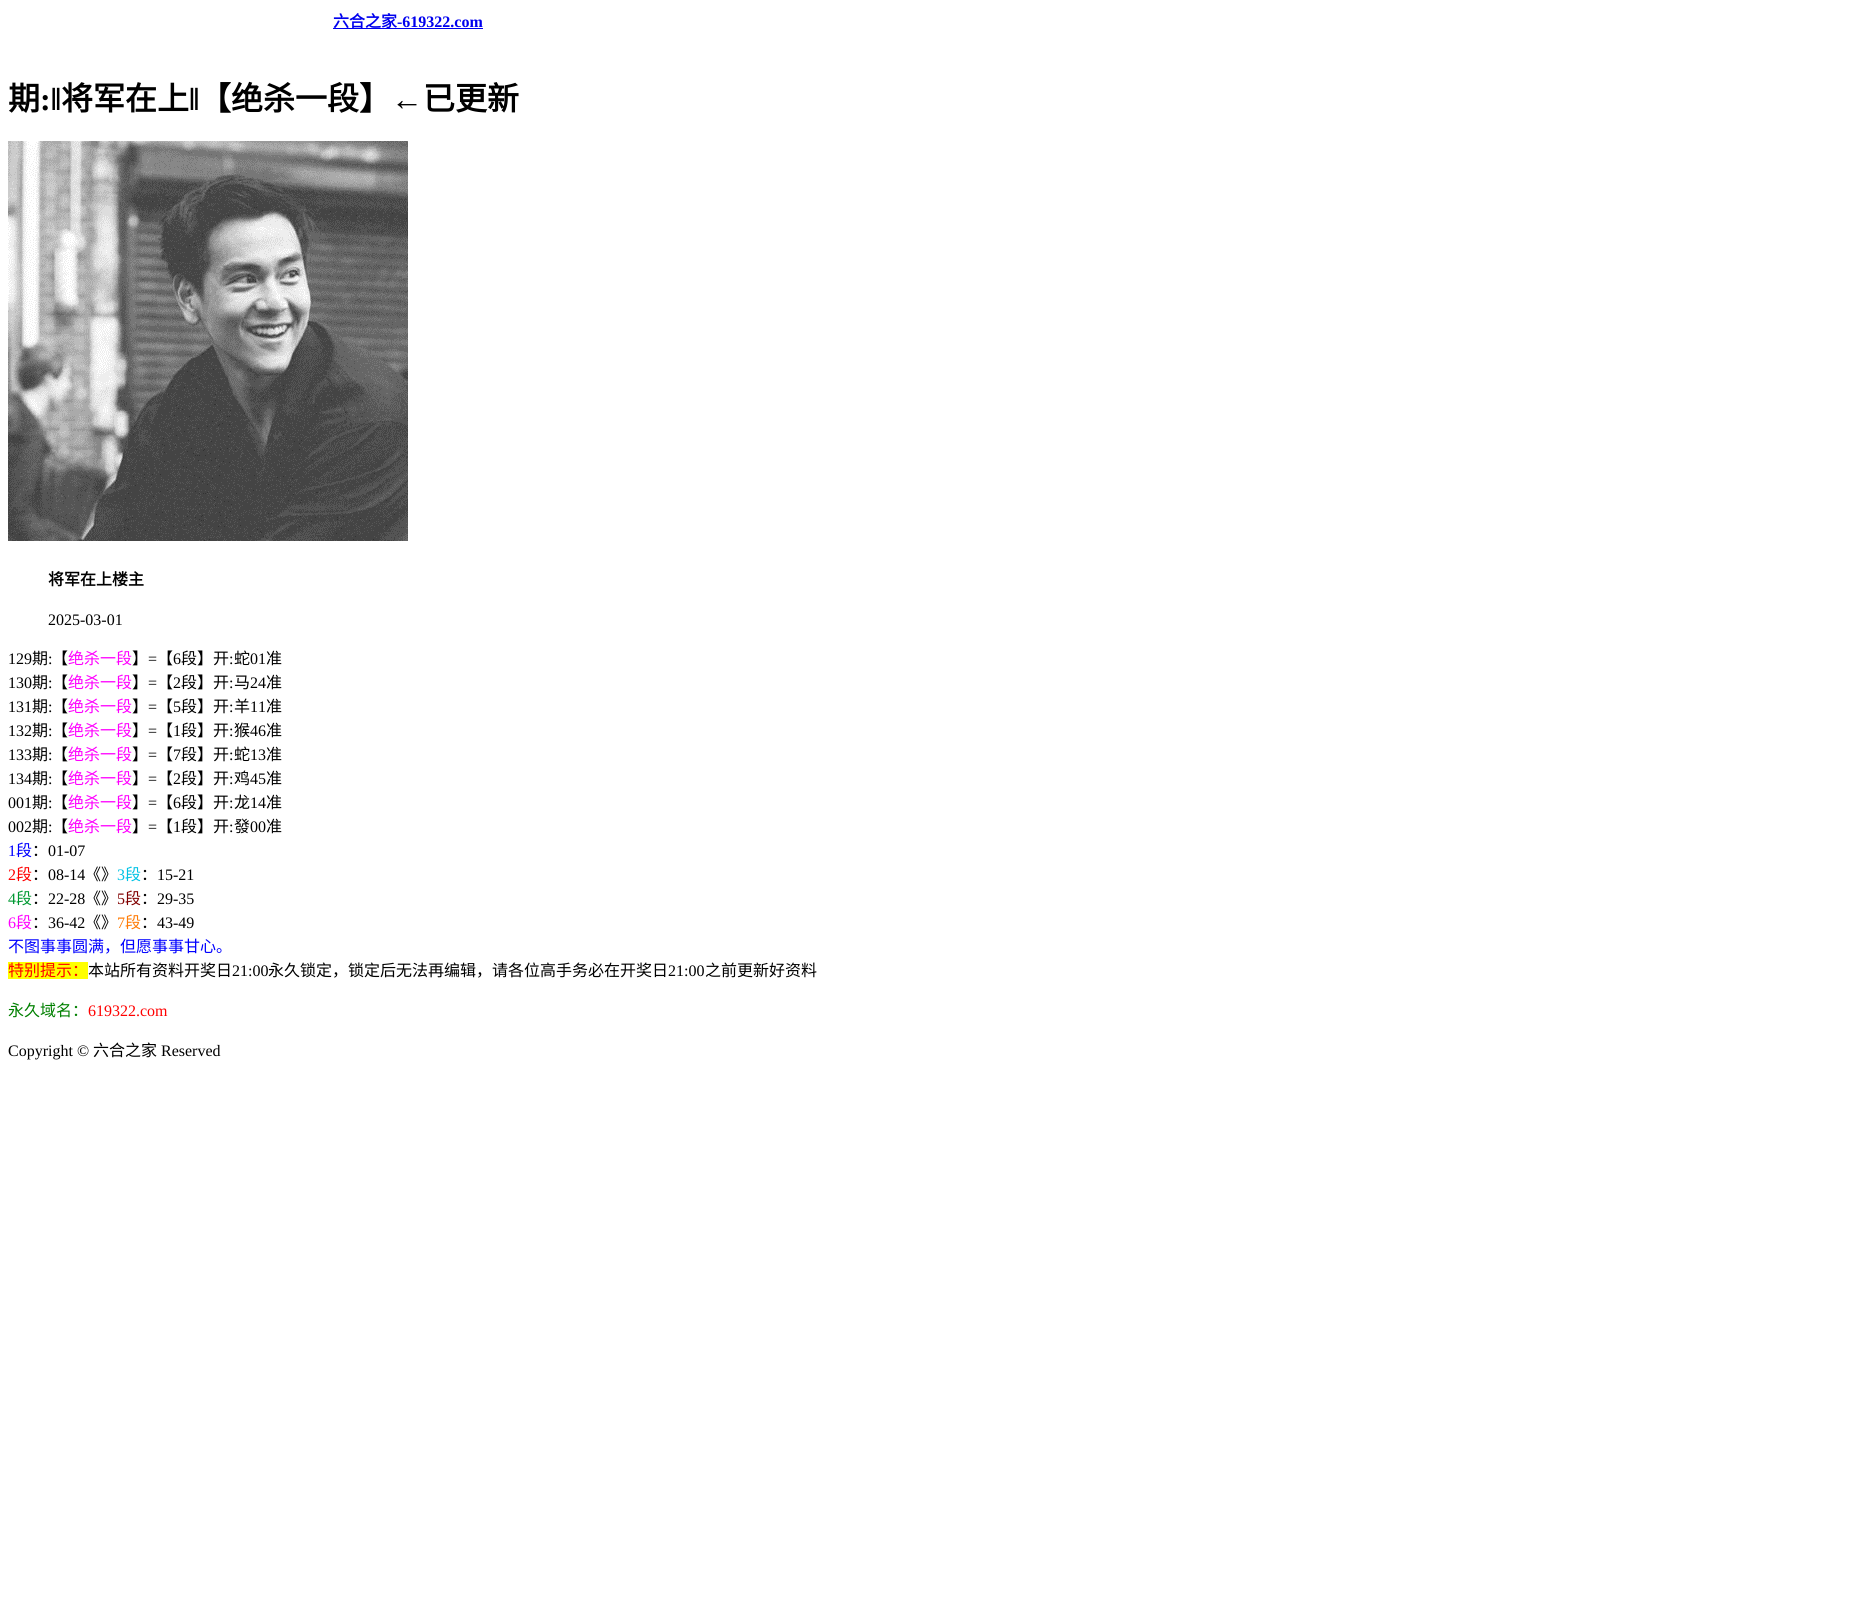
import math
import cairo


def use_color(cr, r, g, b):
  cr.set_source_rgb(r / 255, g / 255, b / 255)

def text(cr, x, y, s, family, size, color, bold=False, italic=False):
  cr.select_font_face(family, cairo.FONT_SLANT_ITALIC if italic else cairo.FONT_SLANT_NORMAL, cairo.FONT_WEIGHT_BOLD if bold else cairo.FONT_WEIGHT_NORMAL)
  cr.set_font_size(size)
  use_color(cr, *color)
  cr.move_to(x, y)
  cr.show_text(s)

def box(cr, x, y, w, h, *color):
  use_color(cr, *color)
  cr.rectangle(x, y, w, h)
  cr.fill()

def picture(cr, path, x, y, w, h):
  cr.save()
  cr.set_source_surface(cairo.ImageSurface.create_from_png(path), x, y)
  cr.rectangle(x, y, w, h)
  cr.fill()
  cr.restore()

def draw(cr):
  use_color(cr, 255, 255, 255)
  cr.paint()
  box(cr, 333, 28, 150, 1, 0, 0, 238)
  picture(cr, "img_01.png", 8, 141, 400, 400)
  box(cr, 8, 962, 80, 17, 255, 255, 0)
  text(cr, 333, 27, "六合之家", "Noto Sans CJK SC", 16, (0, 0, 238), bold=True)
  text(cr, 397, 27, "-619322.com", "Liberation Serif", 16, (0, 0, 238), bold=True)
  text(cr, 8, 110, "期", "Noto Sans CJK SC", 32, (0, 0, 0), bold=True)
  text(cr, 40, 110, ":‖", "Liberation Serif", 32, (0, 0, 0), bold=True)
  text(cr, 61, 110, "将军在上", "Noto Sans CJK SC", 32, (0, 0, 0), bold=True)
  text(cr, 189, 110, "‖", "Liberation Serif", 32, (0, 0, 0), bold=True)
  text(cr, 199, 110, "【绝杀一段】", "Noto Sans CJK SC", 32, (0, 0, 0), bold=True)
  text(cr, 391, 110, "←", "Liberation Serif", 32, (0, 0, 0), bold=True)
  text(cr, 423, 110, "已更新", "Noto Sans CJK SC", 32, (0, 0, 0), bold=True)
  text(cr, 48, 585, "将军在上楼主", "Noto Sans CJK SC", 16, (0, 0, 0), bold=True)
  text(cr, 48, 625, "2025-03-01", "Liberation Serif", 16, (0, 0, 0))
  text(cr, 8, 664, "129", "Liberation Serif", 16, (0, 0, 0))
  text(cr, 32, 664, "期", "Noto Sans CJK SC", 16, (0, 0, 0))
  text(cr, 48, 664, ":", "Liberation Serif", 16, (0, 0, 0))
  text(cr, 52, 664, "【", "Noto Sans CJK SC", 16, (0, 0, 0))
  text(cr, 68, 664, "绝杀一段", "Noto Sans CJK SC", 16, (255, 0, 255))
  text(cr, 132, 664, "】", "Noto Sans CJK SC", 16, (0, 0, 0))
  text(cr, 148, 664, "=", "Liberation Serif", 16, (0, 0, 0))
  text(cr, 157, 664, "【", "Noto Sans CJK SC", 16, (0, 0, 0))
  text(cr, 173, 664, "6", "Liberation Serif", 16, (0, 0, 0))
  text(cr, 181, 664, "段】开", "Noto Sans CJK SC", 16, (0, 0, 0))
  text(cr, 229, 664, ":", "Liberation Serif", 16, (0, 0, 0))
  text(cr, 234, 664, "蛇", "Noto Sans CJK SC", 16, (0, 0, 0))
  text(cr, 250, 664, "01", "Liberation Serif", 16, (0, 0, 0))
  text(cr, 266, 664, "准", "Noto Sans CJK SC", 16, (0, 0, 0))
  text(cr, 8, 688, "130", "Liberation Serif", 16, (0, 0, 0))
  text(cr, 32, 688, "期", "Noto Sans CJK SC", 16, (0, 0, 0))
  text(cr, 48, 688, ":", "Liberation Serif", 16, (0, 0, 0))
  text(cr, 52, 688, "【", "Noto Sans CJK SC", 16, (0, 0, 0))
  text(cr, 68, 688, "绝杀一段", "Noto Sans CJK SC", 16, (255, 0, 255))
  text(cr, 132, 688, "】", "Noto Sans CJK SC", 16, (0, 0, 0))
  text(cr, 148, 688, "=", "Liberation Serif", 16, (0, 0, 0))
  text(cr, 157, 688, "【", "Noto Sans CJK SC", 16, (0, 0, 0))
  text(cr, 173, 688, "2", "Liberation Serif", 16, (0, 0, 0))
  text(cr, 181, 688, "段】开", "Noto Sans CJK SC", 16, (0, 0, 0))
  text(cr, 229, 688, ":", "Liberation Serif", 16, (0, 0, 0))
  text(cr, 234, 688, "马", "Noto Sans CJK SC", 16, (0, 0, 0))
  text(cr, 250, 688, "24", "Liberation Serif", 16, (0, 0, 0))
  text(cr, 266, 688, "准", "Noto Sans CJK SC", 16, (0, 0, 0))
  text(cr, 8, 712, "131", "Liberation Serif", 16, (0, 0, 0))
  text(cr, 32, 712, "期", "Noto Sans CJK SC", 16, (0, 0, 0))
  text(cr, 48, 712, ":", "Liberation Serif", 16, (0, 0, 0))
  text(cr, 52, 712, "【", "Noto Sans CJK SC", 16, (0, 0, 0))
  text(cr, 68, 712, "绝杀一段", "Noto Sans CJK SC", 16, (255, 0, 255))
  text(cr, 132, 712, "】", "Noto Sans CJK SC", 16, (0, 0, 0))
  text(cr, 148, 712, "=", "Liberation Serif", 16, (0, 0, 0))
  text(cr, 157, 712, "【", "Noto Sans CJK SC", 16, (0, 0, 0))
  text(cr, 173, 712, "5", "Liberation Serif", 16, (0, 0, 0))
  text(cr, 181, 712, "段】开", "Noto Sans CJK SC", 16, (0, 0, 0))
  text(cr, 229, 712, ":", "Liberation Serif", 16, (0, 0, 0))
  text(cr, 234, 712, "羊", "Noto Sans CJK SC", 16, (0, 0, 0))
  text(cr, 250, 712, "11", "Liberation Serif", 16, (0, 0, 0))
  text(cr, 266, 712, "准", "Noto Sans CJK SC", 16, (0, 0, 0))
  text(cr, 8, 736, "132", "Liberation Serif", 16, (0, 0, 0))
  text(cr, 32, 736, "期", "Noto Sans CJK SC", 16, (0, 0, 0))
  text(cr, 48, 736, ":", "Liberation Serif", 16, (0, 0, 0))
  text(cr, 52, 736, "【", "Noto Sans CJK SC", 16, (0, 0, 0))
  text(cr, 68, 736, "绝杀一段", "Noto Sans CJK SC", 16, (255, 0, 255))
  text(cr, 132, 736, "】", "Noto Sans CJK SC", 16, (0, 0, 0))
  text(cr, 148, 736, "=", "Liberation Serif", 16, (0, 0, 0))
  text(cr, 157, 736, "【", "Noto Sans CJK SC", 16, (0, 0, 0))
  text(cr, 173, 736, "1", "Liberation Serif", 16, (0, 0, 0))
  text(cr, 181, 736, "段】开", "Noto Sans CJK SC", 16, (0, 0, 0))
  text(cr, 229, 736, ":", "Liberation Serif", 16, (0, 0, 0))
  text(cr, 234, 736, "猴", "Noto Sans CJK SC", 16, (0, 0, 0))
  text(cr, 250, 736, "46", "Liberation Serif", 16, (0, 0, 0))
  text(cr, 266, 736, "准", "Noto Sans CJK SC", 16, (0, 0, 0))
  text(cr, 8, 760, "133", "Liberation Serif", 16, (0, 0, 0))
  text(cr, 32, 760, "期", "Noto Sans CJK SC", 16, (0, 0, 0))
  text(cr, 48, 760, ":", "Liberation Serif", 16, (0, 0, 0))
  text(cr, 52, 760, "【", "Noto Sans CJK SC", 16, (0, 0, 0))
  text(cr, 68, 760, "绝杀一段", "Noto Sans CJK SC", 16, (255, 0, 255))
  text(cr, 132, 760, "】", "Noto Sans CJK SC", 16, (0, 0, 0))
  text(cr, 148, 760, "=", "Liberation Serif", 16, (0, 0, 0))
  text(cr, 157, 760, "【", "Noto Sans CJK SC", 16, (0, 0, 0))
  text(cr, 173, 760, "7", "Liberation Serif", 16, (0, 0, 0))
  text(cr, 181, 760, "段】开", "Noto Sans CJK SC", 16, (0, 0, 0))
  text(cr, 229, 760, ":", "Liberation Serif", 16, (0, 0, 0))
  text(cr, 234, 760, "蛇", "Noto Sans CJK SC", 16, (0, 0, 0))
  text(cr, 250, 760, "13", "Liberation Serif", 16, (0, 0, 0))
  text(cr, 266, 760, "准", "Noto Sans CJK SC", 16, (0, 0, 0))
  text(cr, 8, 784, "134", "Liberation Serif", 16, (0, 0, 0))
  text(cr, 32, 784, "期", "Noto Sans CJK SC", 16, (0, 0, 0))
  text(cr, 48, 784, ":", "Liberation Serif", 16, (0, 0, 0))
  text(cr, 52, 784, "【", "Noto Sans CJK SC", 16, (0, 0, 0))
  text(cr, 68, 784, "绝杀一段", "Noto Sans CJK SC", 16, (255, 0, 255))
  text(cr, 132, 784, "】", "Noto Sans CJK SC", 16, (0, 0, 0))
  text(cr, 148, 784, "=", "Liberation Serif", 16, (0, 0, 0))
  text(cr, 157, 784, "【", "Noto Sans CJK SC", 16, (0, 0, 0))
  text(cr, 173, 784, "2", "Liberation Serif", 16, (0, 0, 0))
  text(cr, 181, 784, "段】开", "Noto Sans CJK SC", 16, (0, 0, 0))
  text(cr, 229, 784, ":", "Liberation Serif", 16, (0, 0, 0))
  text(cr, 234, 784, "鸡", "Noto Sans CJK SC", 16, (0, 0, 0))
  text(cr, 250, 784, "45", "Liberation Serif", 16, (0, 0, 0))
  text(cr, 266, 784, "准", "Noto Sans CJK SC", 16, (0, 0, 0))
  text(cr, 8, 808, "001", "Liberation Serif", 16, (0, 0, 0))
  text(cr, 32, 808, "期", "Noto Sans CJK SC", 16, (0, 0, 0))
  text(cr, 48, 808, ":", "Liberation Serif", 16, (0, 0, 0))
  text(cr, 52, 808, "【", "Noto Sans CJK SC", 16, (0, 0, 0))
  text(cr, 68, 808, "绝杀一段", "Noto Sans CJK SC", 16, (255, 0, 255))
  text(cr, 132, 808, "】", "Noto Sans CJK SC", 16, (0, 0, 0))
  text(cr, 148, 808, "=", "Liberation Serif", 16, (0, 0, 0))
  text(cr, 157, 808, "【", "Noto Sans CJK SC", 16, (0, 0, 0))
  text(cr, 173, 808, "6", "Liberation Serif", 16, (0, 0, 0))
  text(cr, 181, 808, "段】开", "Noto Sans CJK SC", 16, (0, 0, 0))
  text(cr, 229, 808, ":", "Liberation Serif", 16, (0, 0, 0))
  text(cr, 234, 808, "龙", "Noto Sans CJK SC", 16, (0, 0, 0))
  text(cr, 250, 808, "14", "Liberation Serif", 16, (0, 0, 0))
  text(cr, 266, 808, "准", "Noto Sans CJK SC", 16, (0, 0, 0))
  text(cr, 8, 832, "002", "Liberation Serif", 16, (0, 0, 0))
  text(cr, 32, 832, "期", "Noto Sans CJK SC", 16, (0, 0, 0))
  text(cr, 48, 832, ":", "Liberation Serif", 16, (0, 0, 0))
  text(cr, 52, 832, "【", "Noto Sans CJK SC", 16, (0, 0, 0))
  text(cr, 68, 832, "绝杀一段", "Noto Sans CJK SC", 16, (255, 0, 255))
  text(cr, 132, 832, "】", "Noto Sans CJK SC", 16, (0, 0, 0))
  text(cr, 148, 832, "=", "Liberation Serif", 16, (0, 0, 0))
  text(cr, 157, 832, "【", "Noto Sans CJK SC", 16, (0, 0, 0))
  text(cr, 173, 832, "1", "Liberation Serif", 16, (0, 0, 0))
  text(cr, 181, 832, "段】开", "Noto Sans CJK SC", 16, (0, 0, 0))
  text(cr, 229, 832, ":", "Liberation Serif", 16, (0, 0, 0))
  text(cr, 234, 832, "發", "Noto Sans CJK SC", 16, (0, 0, 0))
  text(cr, 250, 832, "00", "Liberation Serif", 16, (0, 0, 0))
  text(cr, 266, 832, "准", "Noto Sans CJK SC", 16, (0, 0, 0))
  text(cr, 8, 856, "1", "Liberation Serif", 16, (0, 0, 255))
  text(cr, 16, 856, "段", "Noto Sans CJK SC", 16, (0, 0, 255))
  text(cr, 32, 856, "：", "Noto Sans CJK SC", 16, (0, 0, 0))
  text(cr, 48, 856, "01-07", "Liberation Serif", 16, (0, 0, 0))
  text(cr, 8, 880, "2", "Liberation Serif", 16, (255, 0, 0))
  text(cr, 16, 880, "段", "Noto Sans CJK SC", 16, (255, 0, 0))
  text(cr, 32, 880, "：", "Noto Sans CJK SC", 16, (0, 0, 0))
  text(cr, 48, 880, "08-14", "Liberation Serif", 16, (0, 0, 0))
  text(cr, 85, 880, "《》", "Noto Sans CJK SC", 16, (0, 0, 0))
  text(cr, 117, 880, "3", "Liberation Serif", 16, (0, 194, 229))
  text(cr, 125, 880, "段", "Noto Sans CJK SC", 16, (0, 194, 229))
  text(cr, 141, 880, "：", "Noto Sans CJK SC", 16, (0, 0, 0))
  text(cr, 157, 880, "15-21", "Liberation Serif", 16, (0, 0, 0))
  text(cr, 8, 904, "4", "Liberation Serif", 16, (0, 153, 51))
  text(cr, 16, 904, "段", "Noto Sans CJK SC", 16, (0, 153, 51))
  text(cr, 32, 904, "：", "Noto Sans CJK SC", 16, (0, 0, 0))
  text(cr, 48, 904, "22-28", "Liberation Serif", 16, (0, 0, 0))
  text(cr, 85, 904, "《》", "Noto Sans CJK SC", 16, (0, 0, 0))
  text(cr, 117, 904, "5", "Liberation Serif", 16, (128, 0, 0))
  text(cr, 125, 904, "段", "Noto Sans CJK SC", 16, (128, 0, 0))
  text(cr, 141, 904, "：", "Noto Sans CJK SC", 16, (0, 0, 0))
  text(cr, 157, 904, "29-35", "Liberation Serif", 16, (0, 0, 0))
  text(cr, 8, 928, "6", "Liberation Serif", 16, (255, 0, 255))
  text(cr, 16, 928, "段", "Noto Sans CJK SC", 16, (255, 0, 255))
  text(cr, 32, 928, "：", "Noto Sans CJK SC", 16, (0, 0, 0))
  text(cr, 48, 928, "36-42", "Liberation Serif", 16, (0, 0, 0))
  text(cr, 85, 928, "《》", "Noto Sans CJK SC", 16, (0, 0, 0))
  text(cr, 117, 928, "7", "Liberation Serif", 16, (255, 124, 7))
  text(cr, 125, 928, "段", "Noto Sans CJK SC", 16, (255, 124, 7))
  text(cr, 141, 928, "：", "Noto Sans CJK SC", 16, (0, 0, 0))
  text(cr, 157, 928, "43-49", "Liberation Serif", 16, (0, 0, 0))
  text(cr, 8, 952, "不图事事圆满，但愿事事甘心。", "Noto Sans CJK SC", 16, (0, 0, 255))
  text(cr, 8, 976, "特别提示：", "Noto Sans CJK SC", 16, (255, 0, 0))
  text(cr, 88, 976, "本站所有资料开奖日", "Noto Sans CJK SC", 16, (0, 0, 0))
  text(cr, 232, 976, "21:00", "Liberation Serif", 16, (0, 0, 0))
  text(cr, 268, 976, "永久锁定，锁定后无法再编辑，请各位高手务必在开奖日", "Noto Sans CJK SC", 16, (0, 0, 0))
  text(cr, 668, 976, "21:00", "Liberation Serif", 16, (0, 0, 0))
  text(cr, 705, 976, "之前更新好资料", "Noto Sans CJK SC", 16, (0, 0, 0))
  text(cr, 8, 1016, "永久域名：", "Noto Sans CJK SC", 16, (0, 128, 0))
  text(cr, 88, 1016, "619322.com", "Liberation Serif", 16, (255, 0, 0))
  text(cr, 8, 1056, "Copyright ©", "Liberation Serif", 16, (0, 0, 0))
  text(cr, 93, 1056, "六合之家", "Noto Sans CJK SC", 16, (0, 0, 0))
  text(cr, 161, 1056, "Reserved", "Liberation Serif", 16, (0, 0, 0))


surface = cairo.ImageSurface(cairo.FORMAT_RGB24, 1859, 1619)
cr = cairo.Context(surface)
options = cairo.FontOptions()
options.set_hint_metrics(cairo.HINT_METRICS_OFF)
options.set_hint_style(cairo.HINT_STYLE_NONE)
cr.set_font_options(options)
cr.set_miter_limit(4)
draw(cr)
surface.write_to_png("out.png")
